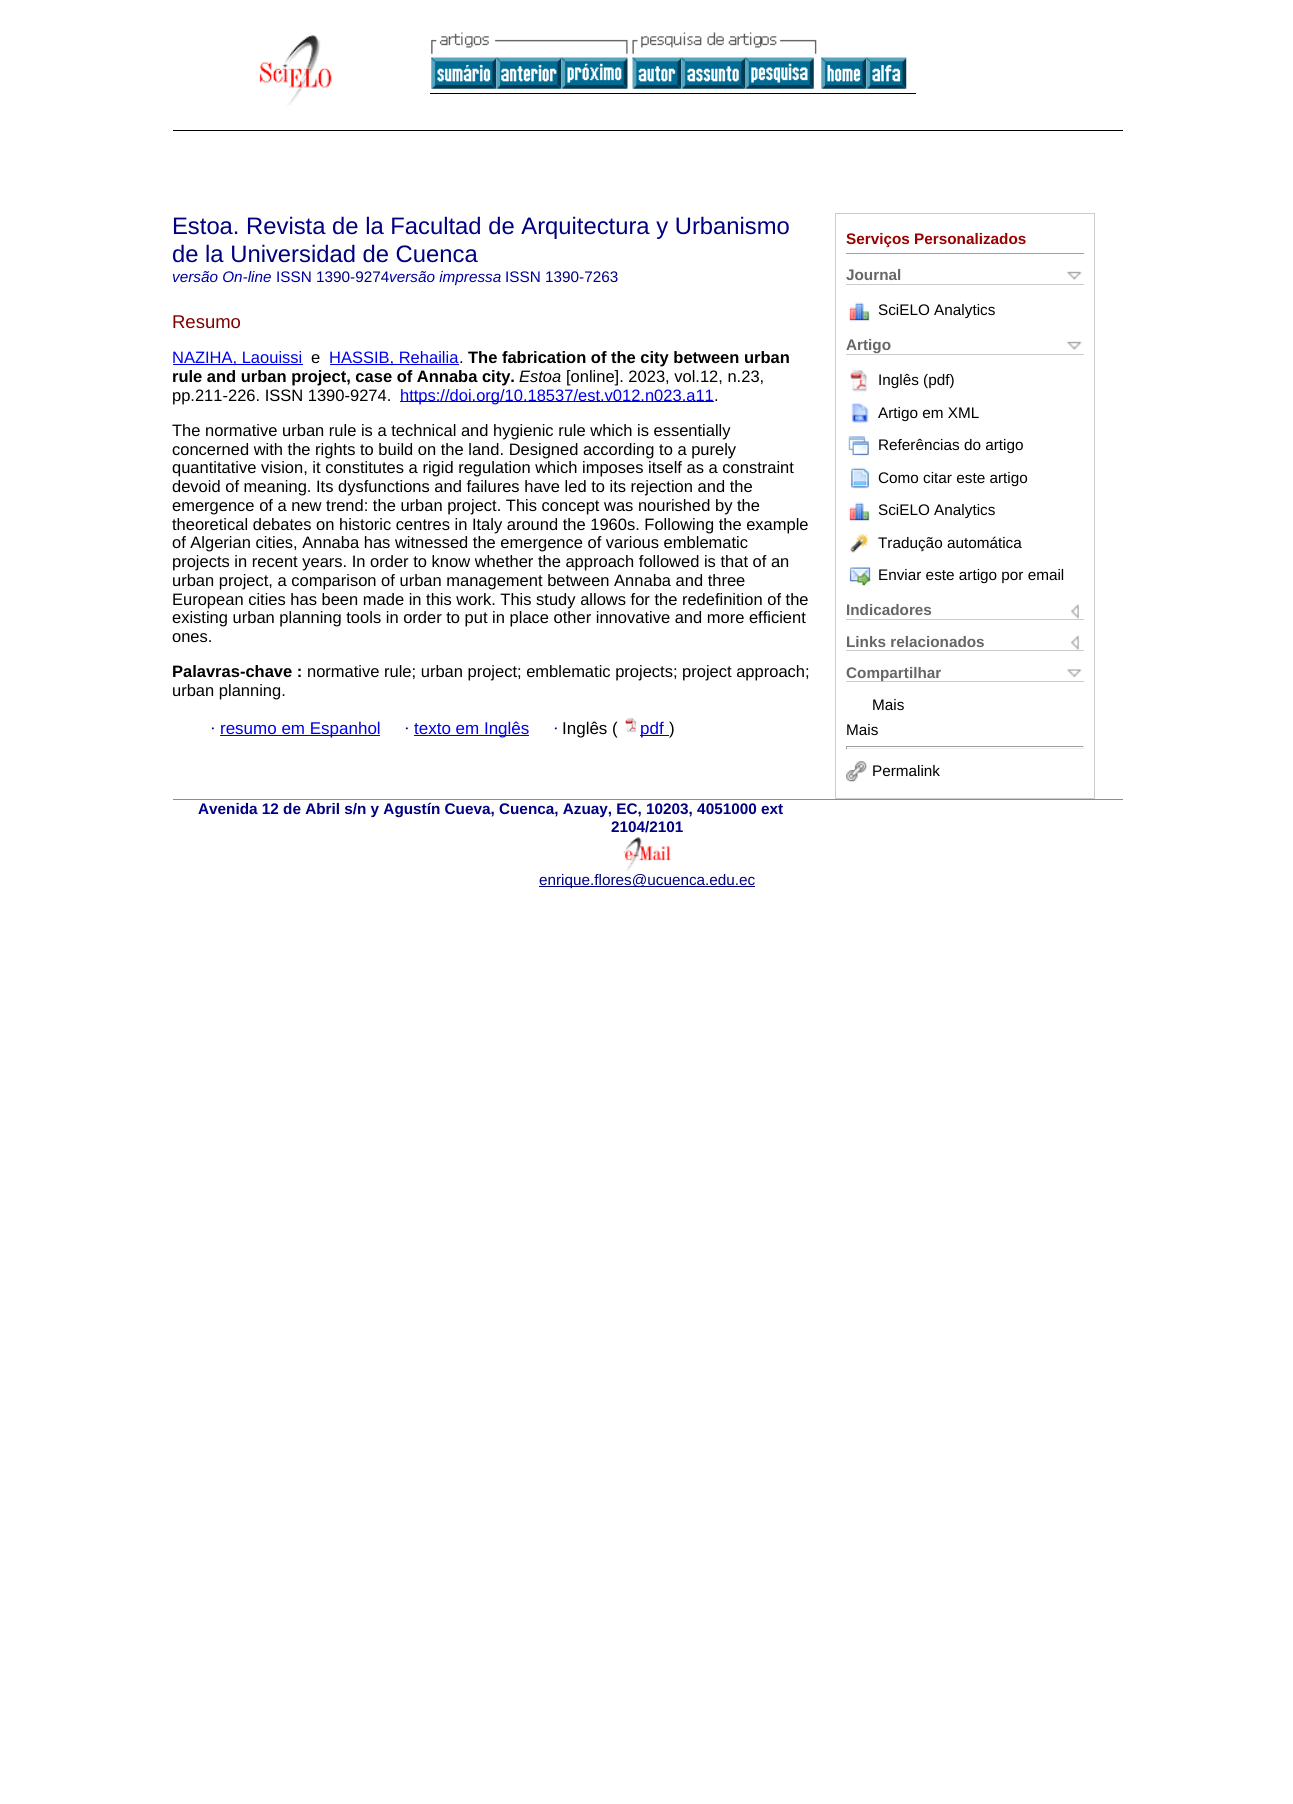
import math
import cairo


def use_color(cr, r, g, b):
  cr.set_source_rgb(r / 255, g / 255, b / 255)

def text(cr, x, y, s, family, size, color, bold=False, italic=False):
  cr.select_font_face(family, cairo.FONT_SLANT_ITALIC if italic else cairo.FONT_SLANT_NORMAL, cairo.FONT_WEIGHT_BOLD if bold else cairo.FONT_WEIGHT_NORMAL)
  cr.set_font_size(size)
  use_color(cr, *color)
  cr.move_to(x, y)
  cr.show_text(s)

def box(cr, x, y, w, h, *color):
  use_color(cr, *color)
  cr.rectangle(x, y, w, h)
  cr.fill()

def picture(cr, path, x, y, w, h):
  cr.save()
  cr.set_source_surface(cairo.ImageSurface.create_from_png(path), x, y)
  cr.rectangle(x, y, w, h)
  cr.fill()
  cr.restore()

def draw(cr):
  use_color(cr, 255, 255, 255)
  cr.paint()
  box(cr, 173, 130, 950, 1, 0, 0, 0)
  picture(cr, "img_01.png", 259, 35, 73, 71)
  box(cr, 430, 93, 486, 1, 0, 0, 0)
  picture(cr, "img_02.png", 431, 32, 197, 22)
  picture(cr, "img_03.png", 632, 32, 185, 22)
  picture(cr, "img_04.png", 431, 57, 66, 32)
  picture(cr, "img_05.png", 496, 57, 66, 32)
  picture(cr, "img_06.png", 561, 57, 67, 32)
  picture(cr, "img_07.png", 632, 57, 50, 32)
  picture(cr, "img_08.png", 681, 57, 64, 32)
  picture(cr, "img_09.png", 745, 57, 69, 32)
  picture(cr, "img_10.png", 821, 57, 46, 32)
  picture(cr, "img_11.png", 866, 57, 41, 32)
  box(cr, 173, 799, 950, 1, 141, 141, 141)
  cr.rectangle(835.5, 213.5, 259, 585)
  use_color(cr, 204, 204, 204)
  cr.set_line_width(1)
  cr.stroke()
  box(cr, 846, 253, 238, 1, 190, 149, 149)
  picture(cr, "img_12.png", 1067, 271, 15, 9)
  box(cr, 846, 284, 238, 1, 204, 204, 204)
  picture(cr, "img_13.png", 848, 302, 22, 20)
  picture(cr, "img_12.png", 1067, 341, 15, 9)
  box(cr, 846, 354, 238, 1, 204, 204, 204)
  picture(cr, "img_14.png", 850, 370, 18, 22)
  picture(cr, "img_15.png", 851, 403, 18, 21)
  picture(cr, "img_16.png", 848, 436, 21, 20)
  picture(cr, "img_17.png", 851, 467, 19, 22)
  picture(cr, "img_13.png", 848, 502, 22, 20)
  picture(cr, "img_18.png", 850, 533, 19, 20)
  picture(cr, "img_19.png", 846, 566, 26, 20)
  picture(cr, "img_20.png", 1071, 604, 8, 15)
  box(cr, 846, 619, 238, 1, 204, 204, 204)
  picture(cr, "img_21.png", 1071, 635, 8, 15)
  box(cr, 846, 650, 238, 1, 204, 204, 204)
  picture(cr, "img_22.png", 1067, 669, 15, 8)
  box(cr, 846, 681, 238, 1, 204, 204, 204)
  box(cr, 846, 746, 238, 1, 159, 159, 159)
  box(cr, 1083, 746, 1, 3, 238, 238, 238)
  box(cr, 846, 748, 238, 1, 238, 238, 238)
  box(cr, 846, 746, 1, 3, 159, 159, 159)
  picture(cr, "img_23.png", 846, 761, 21, 21)
  box(cr, 173, 364, 130, 1, 0, 0, 238)
  box(cr, 330, 364, 129, 1, 0, 0, 238)
  box(cr, 400, 401, 314, 1, 0, 0, 238)
  box(cr, 220, 735, 160, 1, 0, 0, 238)
  box(cr, 414, 735, 115, 1, 0, 0, 238)
  picture(cr, "img_24.png", 625, 718, 12, 14)
  box(cr, 640, 735, 29, 1, 0, 0, 238)
  picture(cr, "img_25.png", 623, 837, 49, 34)
  box(cr, 539, 886, 216, 1, 0, 0, 128)
  text(cr, 172, 234, "Estoa. Revista de la Facultad de Arquitectura y Urbanismo", "Liberation Sans", 23.8, (0, 0, 128))
  text(cr, 172, 262, "de la Universidad de Cuenca", "Liberation Sans", 23.8, (0, 0, 128))
  text(cr, 846, 244, "Serviços Personalizados", "Liberation Sans", 15.3, (153, 0, 0), bold=True)
  text(cr, 846, 280, "Journal", "Liberation Sans", 15.3, (102, 102, 102), bold=True)
  text(cr, 878, 315, "SciELO Analytics", "Liberation Sans", 15.3, (0, 0, 0))
  text(cr, 846, 350, "Artigo", "Liberation Sans", 15.3, (102, 102, 102), bold=True)
  text(cr, 878, 385, "Inglês (pdf)", "Liberation Sans", 15.3, (0, 0, 0))
  text(cr, 878, 418, "Artigo em XML", "Liberation Sans", 15.3, (0, 0, 0))
  text(cr, 878, 450, "Referências do artigo", "Liberation Sans", 15.3, (0, 0, 0))
  text(cr, 878, 483, "Como citar este artigo", "Liberation Sans", 15.3, (0, 0, 0))
  text(cr, 878, 515, "SciELO Analytics", "Liberation Sans", 15.3, (0, 0, 0))
  text(cr, 878, 548, "Tradução automática", "Liberation Sans", 15.3, (0, 0, 0))
  text(cr, 878, 580, "Enviar este artigo por email", "Liberation Sans", 15.3, (0, 0, 0))
  text(cr, 846, 615, "Indicadores", "Liberation Sans", 15.3, (102, 102, 102), bold=True)
  text(cr, 846, 647, "Links relacionados", "Liberation Sans", 15.3, (102, 102, 102), bold=True)
  text(cr, 846, 678, "Compartilhar", "Liberation Sans", 15.3, (102, 102, 102), bold=True)
  text(cr, 872, 710, "Mais", "Liberation Sans", 15.3, (0, 0, 0))
  text(cr, 846, 735, "Mais", "Liberation Sans", 15.3, (0, 0, 0))
  text(cr, 872, 776, "Permalink", "Liberation Sans", 15.3, (0, 0, 0))
  text(cr, 172, 282, "versão On-line", "Liberation Sans", 15.3, (0, 0, 160), italic=True)
  text(cr, 276, 282, "ISSN", "Liberation Sans", 15.3, (0, 0, 160))
  text(cr, 316, 282, "1390-9274", "Liberation Sans", 15.3, (0, 0, 128))
  text(cr, 389, 282, "versão impressa", "Liberation Sans", 15.3, (0, 0, 160), italic=True)
  text(cr, 505, 282, "ISSN", "Liberation Sans", 15.3, (0, 0, 160))
  text(cr, 545, 282, "1390-7263", "Liberation Sans", 15.3, (0, 0, 128))
  text(cr, 172, 328, "Resumo", "Liberation Sans", 18.5, (128, 0, 0))
  text(cr, 172, 363, "NAZIHA, Laouissi", "Liberation Sans", 16.5, (0, 0, 238))
  text(cr, 311, 363, "e", "Liberation Sans", 16.5, (0, 0, 0))
  text(cr, 329, 363, "HASSIB, Rehailia", "Liberation Sans", 16.5, (0, 0, 238))
  text(cr, 459, 363, ".", "Liberation Sans", 16.5, (0, 0, 0))
  text(cr, 468, 363, "The fabrication of the city between urban", "Liberation Sans", 16.5, (0, 0, 0), bold=True)
  text(cr, 172, 382, "rule and urban project, case of Annaba city.", "Liberation Sans", 16.5, (0, 0, 0), bold=True)
  text(cr, 519, 382, "Estoa", "Liberation Sans", 16.5, (0, 0, 0), italic=True)
  text(cr, 566, 382, "[online]. 2023, vol.12, n.23,", "Liberation Sans", 16.5, (0, 0, 0))
  text(cr, 172, 401, "pp.211-226. ISSN 1390-9274.", "Liberation Sans", 16.5, (0, 0, 0))
  text(cr, 400, 401, "https://doi.org/10.18537/est.v012.n023.a11", "Liberation Sans", 16.5, (0, 0, 238))
  text(cr, 714, 401, ".", "Liberation Sans", 16.5, (0, 0, 0))
  text(cr, 172, 436, "The normative urban rule is a technical and hygienic rule which is essentially", "Liberation Sans", 16.5, (0, 0, 0))
  text(cr, 172, 455, "concerned with the rights to build on the land. Designed according to a purely", "Liberation Sans", 16.5, (0, 0, 0))
  text(cr, 172, 473, "quantitative vision, it constitutes a rigid regulation which imposes itself as a constraint", "Liberation Sans", 16.5, (0, 0, 0))
  text(cr, 172, 492, "devoid of meaning. Its dysfunctions and failures have led to its rejection and the", "Liberation Sans", 16.5, (0, 0, 0))
  text(cr, 172, 511, "emergence of a new trend: the urban project. This concept was nourished by the", "Liberation Sans", 16.5, (0, 0, 0))
  text(cr, 172, 530, "theoretical debates on historic centres in Italy around the 1960s. Following the example", "Liberation Sans", 16.5, (0, 0, 0))
  text(cr, 172, 548, "of Algerian cities, Annaba has witnessed the emergence of various emblematic", "Liberation Sans", 16.5, (0, 0, 0))
  text(cr, 172, 567, "projects in recent years. In order to know whether the approach followed is that of an", "Liberation Sans", 16.5, (0, 0, 0))
  text(cr, 172, 586, "urban project, a comparison of urban management between Annaba and three", "Liberation Sans", 16.5, (0, 0, 0))
  text(cr, 172, 605, "European cities has been made in this work. This study allows for the redefinition of the", "Liberation Sans", 16.5, (0, 0, 0))
  text(cr, 172, 623, "existing urban planning tools in order to put in place other innovative and more efficient", "Liberation Sans", 16.5, (0, 0, 0))
  text(cr, 172, 642, "ones.", "Liberation Sans", 16.5, (0, 0, 0))
  text(cr, 172, 677, "Palavras-chave :", "Liberation Sans", 16.5, (0, 0, 0), bold=True)
  text(cr, 307, 677, "normative rule; urban project; emblematic projects; project approach;", "Liberation Sans", 16.5, (0, 0, 0))
  text(cr, 172, 696, "urban planning.", "Liberation Sans", 16.5, (0, 0, 0))
  text(cr, 210, 734, "·", "Liberation Serif", 17, (0, 0, 128))
  text(cr, 220, 734, "resumo em Espanhol", "Liberation Sans", 17, (0, 0, 238))
  text(cr, 404, 734, "·", "Liberation Serif", 17, (0, 0, 128))
  text(cr, 414, 734, "texto em Inglês", "Liberation Sans", 17, (0, 0, 238))
  text(cr, 553, 734, "·", "Liberation Serif", 17, (0, 0, 128))
  text(cr, 562, 734, "Inglês (", "Liberation Sans", 17, (0, 0, 0))
  text(cr, 640, 734, "pdf", "Liberation Sans", 17, (0, 0, 238))
  text(cr, 669, 734, ")", "Liberation Sans", 17, (0, 0, 0))
  text(cr, 198, 814, "Avenida 12 de Abril s/n y Agustín Cueva, Cuenca, Azuay, EC, 10203, 4051000 ext", "Liberation Sans", 15.3, (0, 0, 128), bold=True)
  text(cr, 611, 832, "2104/2101", "Liberation Sans", 15.3, (0, 0, 128), bold=True)
  text(cr, 539, 885, "enrique.flores@ucuenca.edu.ec", "Liberation Sans", 15.3, (0, 0, 128))


surface = cairo.ImageSurface(cairo.FORMAT_RGB24, 1293, 1804)
cr = cairo.Context(surface)
options = cairo.FontOptions()
options.set_hint_metrics(cairo.HINT_METRICS_OFF)
options.set_hint_style(cairo.HINT_STYLE_NONE)
cr.set_font_options(options)
cr.set_miter_limit(4)
draw(cr)
surface.write_to_png("out.png")
